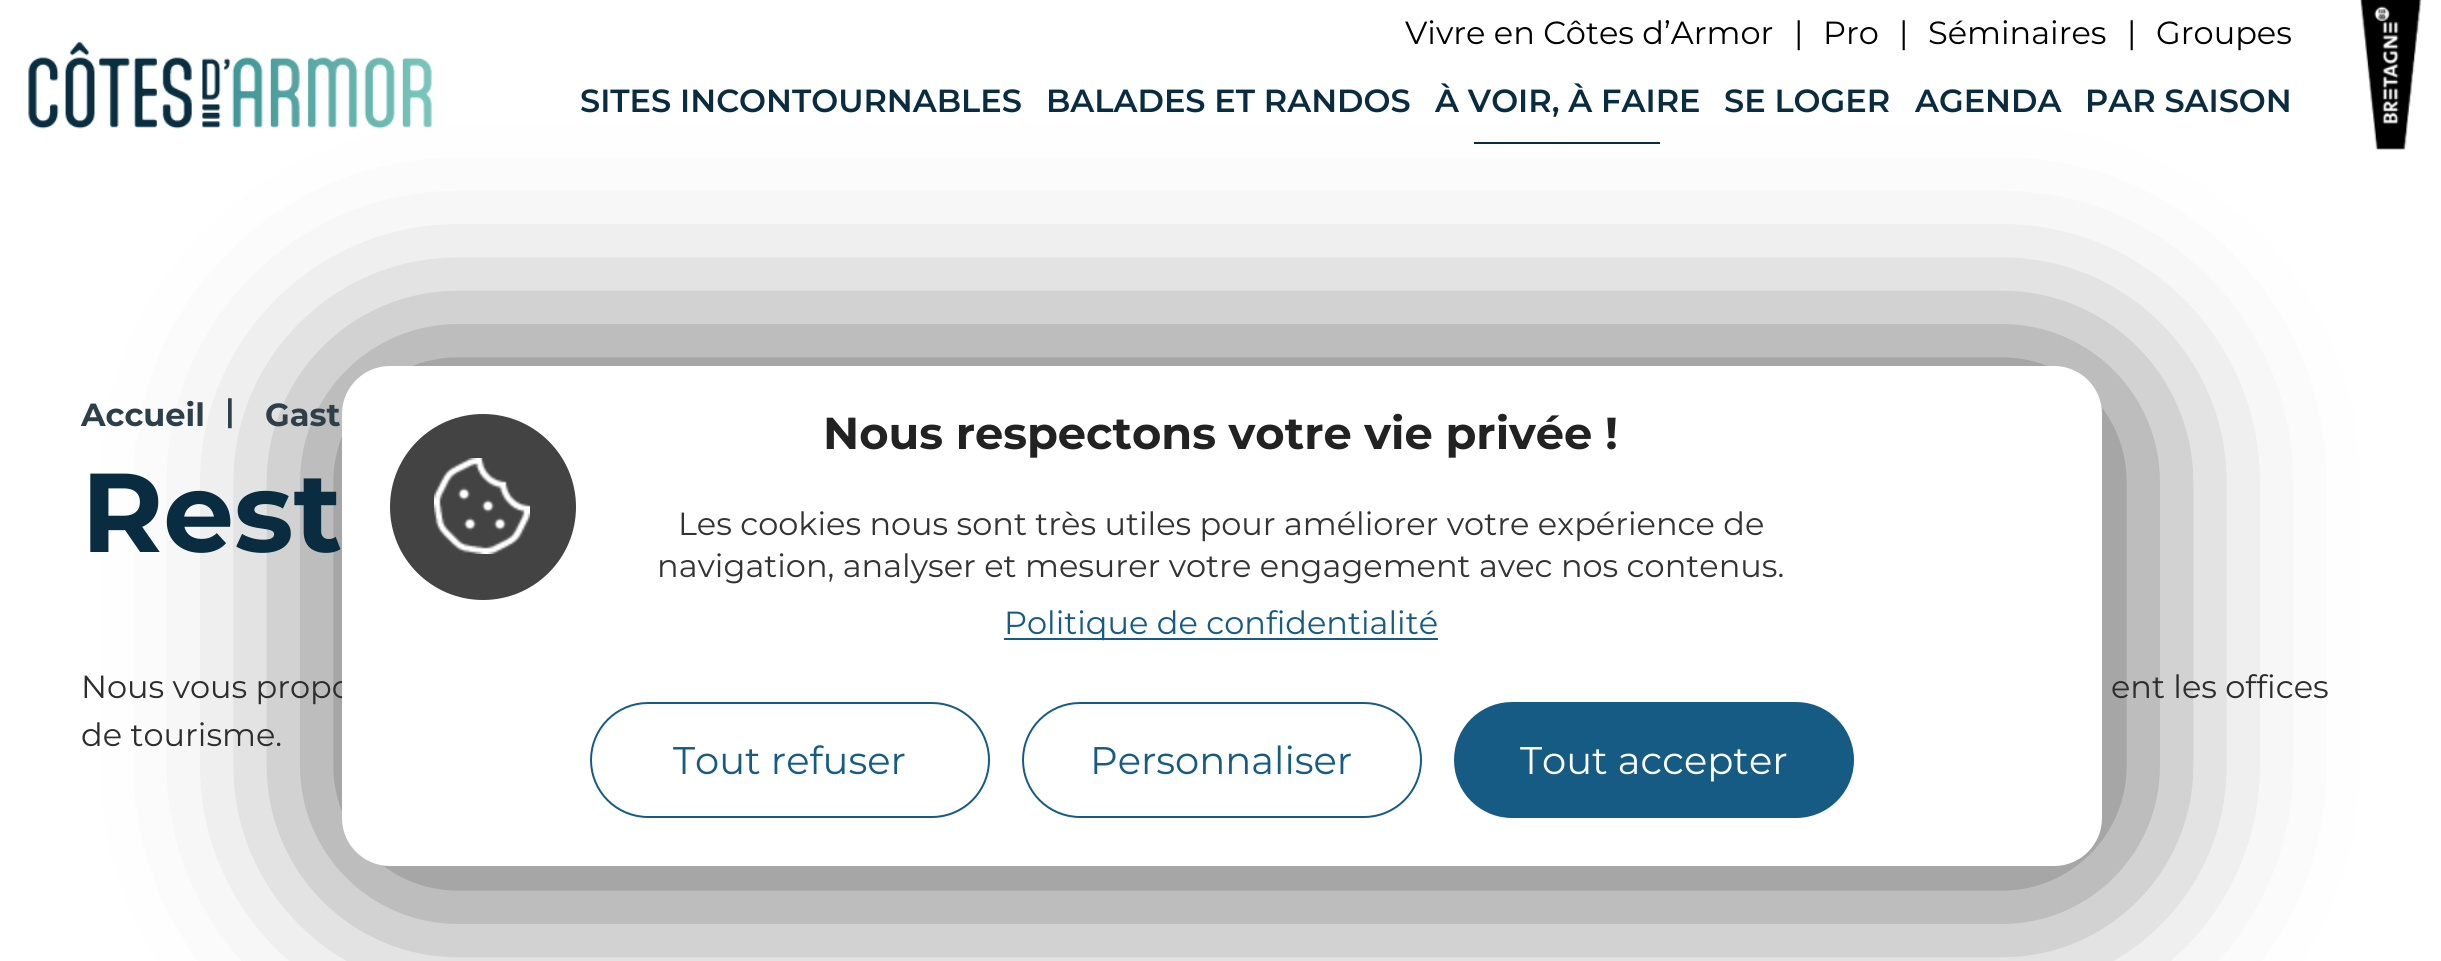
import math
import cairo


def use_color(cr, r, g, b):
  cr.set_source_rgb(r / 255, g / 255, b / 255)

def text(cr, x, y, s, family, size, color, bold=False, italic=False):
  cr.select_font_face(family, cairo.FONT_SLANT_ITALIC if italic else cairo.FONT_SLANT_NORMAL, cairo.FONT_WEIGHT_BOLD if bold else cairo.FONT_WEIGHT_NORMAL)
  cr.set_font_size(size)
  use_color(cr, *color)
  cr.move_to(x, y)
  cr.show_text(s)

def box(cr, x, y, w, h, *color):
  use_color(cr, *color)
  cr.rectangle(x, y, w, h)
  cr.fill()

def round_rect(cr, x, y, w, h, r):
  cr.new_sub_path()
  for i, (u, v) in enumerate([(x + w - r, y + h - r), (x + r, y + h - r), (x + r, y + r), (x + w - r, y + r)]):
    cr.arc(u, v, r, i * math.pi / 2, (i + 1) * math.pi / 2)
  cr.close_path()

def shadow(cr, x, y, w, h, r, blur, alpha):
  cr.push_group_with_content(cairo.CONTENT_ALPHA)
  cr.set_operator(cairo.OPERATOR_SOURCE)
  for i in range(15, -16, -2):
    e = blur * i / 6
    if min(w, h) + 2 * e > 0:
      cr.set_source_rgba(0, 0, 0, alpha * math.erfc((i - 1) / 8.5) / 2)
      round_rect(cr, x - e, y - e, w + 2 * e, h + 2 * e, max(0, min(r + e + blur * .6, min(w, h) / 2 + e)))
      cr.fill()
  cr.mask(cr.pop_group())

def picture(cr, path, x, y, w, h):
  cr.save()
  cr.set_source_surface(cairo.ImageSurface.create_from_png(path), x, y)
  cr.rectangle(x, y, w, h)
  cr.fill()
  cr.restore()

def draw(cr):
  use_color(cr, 255, 255, 255)
  cr.paint()
  picture(cr, "img_01.png", 28, 41, 404, 88)
  picture(cr, "img_02.png", 2360, 0, 62, 150)
  box(cr, 1474, 142, 186, 2, 9, 44, 64)
  use_color(cr, 0, 0, 0)
  shadow(cr, 350, 374, 1760, 500, 48, 100, 0.7)
  text(cr, 1405, 44, "Vivre en Côtes d’Armor", "Montserrat", 32, (0, 0, 0))
  text(cr, 1794, 44, "|", "Montserrat", 32, (0, 0, 0))
  text(cr, 1823, 44, "Pro", "Montserrat", 32, (0, 0, 0))
  text(cr, 1899, 44, "|", "Montserrat", 32, (0, 0, 0))
  text(cr, 1928, 44, "Séminaires", "Montserrat", 32, (0, 0, 0))
  text(cr, 2127, 44, "|", "Montserrat", 32, (0, 0, 0))
  text(cr, 2156, 44, "Groupes", "Montserrat", 32, (0, 0, 0))
  text(cr, 580, 112, "SITES INCONTOURNABLES", "Montserrat SemiBold", 32, (9, 44, 64))
  text(cr, 1046, 112, "BALADES ET RANDOS", "Montserrat SemiBold", 32, (9, 44, 64))
  text(cr, 1435, 112, "À VOIR, À FAIRE", "Montserrat SemiBold", 32, (9, 44, 64))
  text(cr, 1724, 112, "SE LOGER", "Montserrat SemiBold", 32, (9, 44, 64))
  text(cr, 1915, 112, "AGENDA", "Montserrat SemiBold", 32, (9, 44, 64))
  text(cr, 2085, 112, "PAR SAISON", "Montserrat SemiBold", 32, (9, 44, 64))
  text(cr, 81, 426, "Accueil", "Montserrat", 32, (45, 63, 73), bold=True)
  text(cr, 225, 422, "|", "Montserrat SemiBold", 32, (45, 63, 73))
  text(cr, 265, 426, "Gast", "Montserrat", 32, (45, 63, 73), bold=True)
  text(cr, 81, 552, "Rest", "Montserrat", 112, (9, 44, 64), bold=True)
  text(cr, 81, 698, "Nous vous propo", "Montserrat", 32, (45, 45, 45))
  text(cr, 2111, 698, "ent les offices", "Montserrat", 32, (45, 45, 45))
  text(cr, 81, 746, "de tourisme.", "Montserrat", 32, (45, 45, 45))
  use_color(cr, 255, 255, 255)
  round_rect(cr, 342, 366, 1760, 500, 48)
  cr.fill()
  use_color(cr, 67, 67, 67)
  cr.arc(483, 507, 93, 0, 2 * math.pi)
  cr.fill()
  picture(cr, "img_03.png", 434, 458, 96, 96)
  text(cr, 823, 449, "Nous respectons votre vie privée !", "Montserrat", 44.75, (34, 34, 34), bold=True)
  text(cr, 678, 535, "Les cookies nous sont très utiles pour améliorer votre expérience de", "Montserrat", 32, (51, 51, 51))
  text(cr, 657, 577, "navigation, analyser et mesurer votre engagement avec nos contenus.", "Montserrat", 32, (51, 51, 51))
  box(cr, 1004, 638, 434, 2, 21, 91, 132)
  text(cr, 1004, 634, "Politique de confidentialité", "Montserrat", 32, (21, 91, 132))
  round_rect(cr, 591, 703, 398, 114, 57)
  cr.stroke()
  text(cr, 673, 774, "Tout refuser", "Montserrat", 38.5, (21, 91, 132))
  round_rect(cr, 1023, 703, 398, 114, 57)
  cr.stroke()
  text(cr, 1090, 774, "Personnaliser", "Montserrat", 38.5, (21, 91, 132))
  round_rect(cr, 1455, 703, 398, 114, 57)
  cr.fill_preserve()
  cr.stroke()
  text(cr, 1520, 774, "Tout accepter", "Montserrat", 38.5, (255, 255, 255))


surface = cairo.ImageSurface(cairo.FORMAT_RGB24, 2441, 961)
cr = cairo.Context(surface)
options = cairo.FontOptions()
options.set_hint_metrics(cairo.HINT_METRICS_OFF)
options.set_hint_style(cairo.HINT_STYLE_NONE)
cr.set_font_options(options)
cr.set_miter_limit(4)
draw(cr)
surface.write_to_png("out.png")
